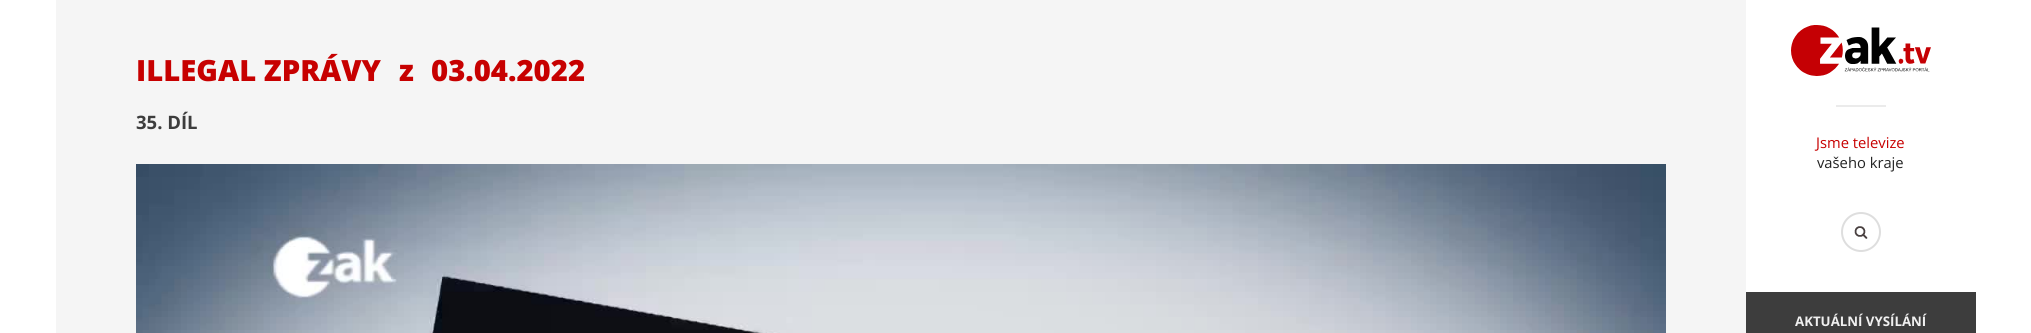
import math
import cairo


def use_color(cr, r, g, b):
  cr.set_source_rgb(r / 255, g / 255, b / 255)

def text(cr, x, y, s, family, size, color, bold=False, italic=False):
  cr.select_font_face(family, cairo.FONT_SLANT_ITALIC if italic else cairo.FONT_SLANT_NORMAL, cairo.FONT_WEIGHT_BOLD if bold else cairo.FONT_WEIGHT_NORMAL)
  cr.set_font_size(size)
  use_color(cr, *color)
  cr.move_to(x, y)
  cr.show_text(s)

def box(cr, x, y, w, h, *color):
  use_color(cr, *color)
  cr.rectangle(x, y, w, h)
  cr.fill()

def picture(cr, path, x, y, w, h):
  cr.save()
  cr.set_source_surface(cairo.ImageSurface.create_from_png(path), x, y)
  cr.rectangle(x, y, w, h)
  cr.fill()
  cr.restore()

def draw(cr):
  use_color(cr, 255, 255, 255)
  cr.paint()
  box(cr, 1746, 292, 230, 41, 61, 61, 61)
  box(cr, 56, 0, 1690, 333, 245, 245, 245)
  picture(cr, "img_01.png", 136, 164, 1530, 169)
  picture(cr, "img_02.png", 1791, 25, 140, 51)
  box(cr, 1836, 105, 50, 2, 235, 235, 235)
  picture(cr, "img_03.png", 1854, 226, 14, 13)
  cr.arc(1861, 232, 19, 0, 2 * math.pi)
  use_color(cr, 222, 222, 222)
  cr.stroke()
  text(cr, 136, 81, "ILLEGAL ZPRÁVY", "Open Sans ExtraBold", 29.25, (199, 0, 0))
  text(cr, 399, 81, "z", "Open Sans ExtraBold", 29.25, (199, 0, 0))
  text(cr, 431, 81, "03.04.2022", "Open Sans ExtraBold", 29.25, (199, 0, 0))
  text(cr, 136, 129, "35. DÍL", "Open Sans", 18.5, (61, 61, 61), bold=True)
  text(cr, 1816, 148, "Jsme televize", "Open Sans", 14.75, (199, 0, 0))
  text(cr, 1817, 168, "vašeho kraje", "Open Sans", 14.75, (35, 35, 35))
  text(cr, 1795, 326, "AKTUÁLNÍ VYSÍLÁNÍ", "Open Sans", 13.25, (240, 240, 240), bold=True)


surface = cairo.ImageSurface(cairo.FORMAT_RGB24, 2031, 333)
cr = cairo.Context(surface)
options = cairo.FontOptions()
options.set_hint_metrics(cairo.HINT_METRICS_OFF)
options.set_hint_style(cairo.HINT_STYLE_NONE)
cr.set_font_options(options)
cr.set_miter_limit(4)
draw(cr)
surface.write_to_png("out.png")
